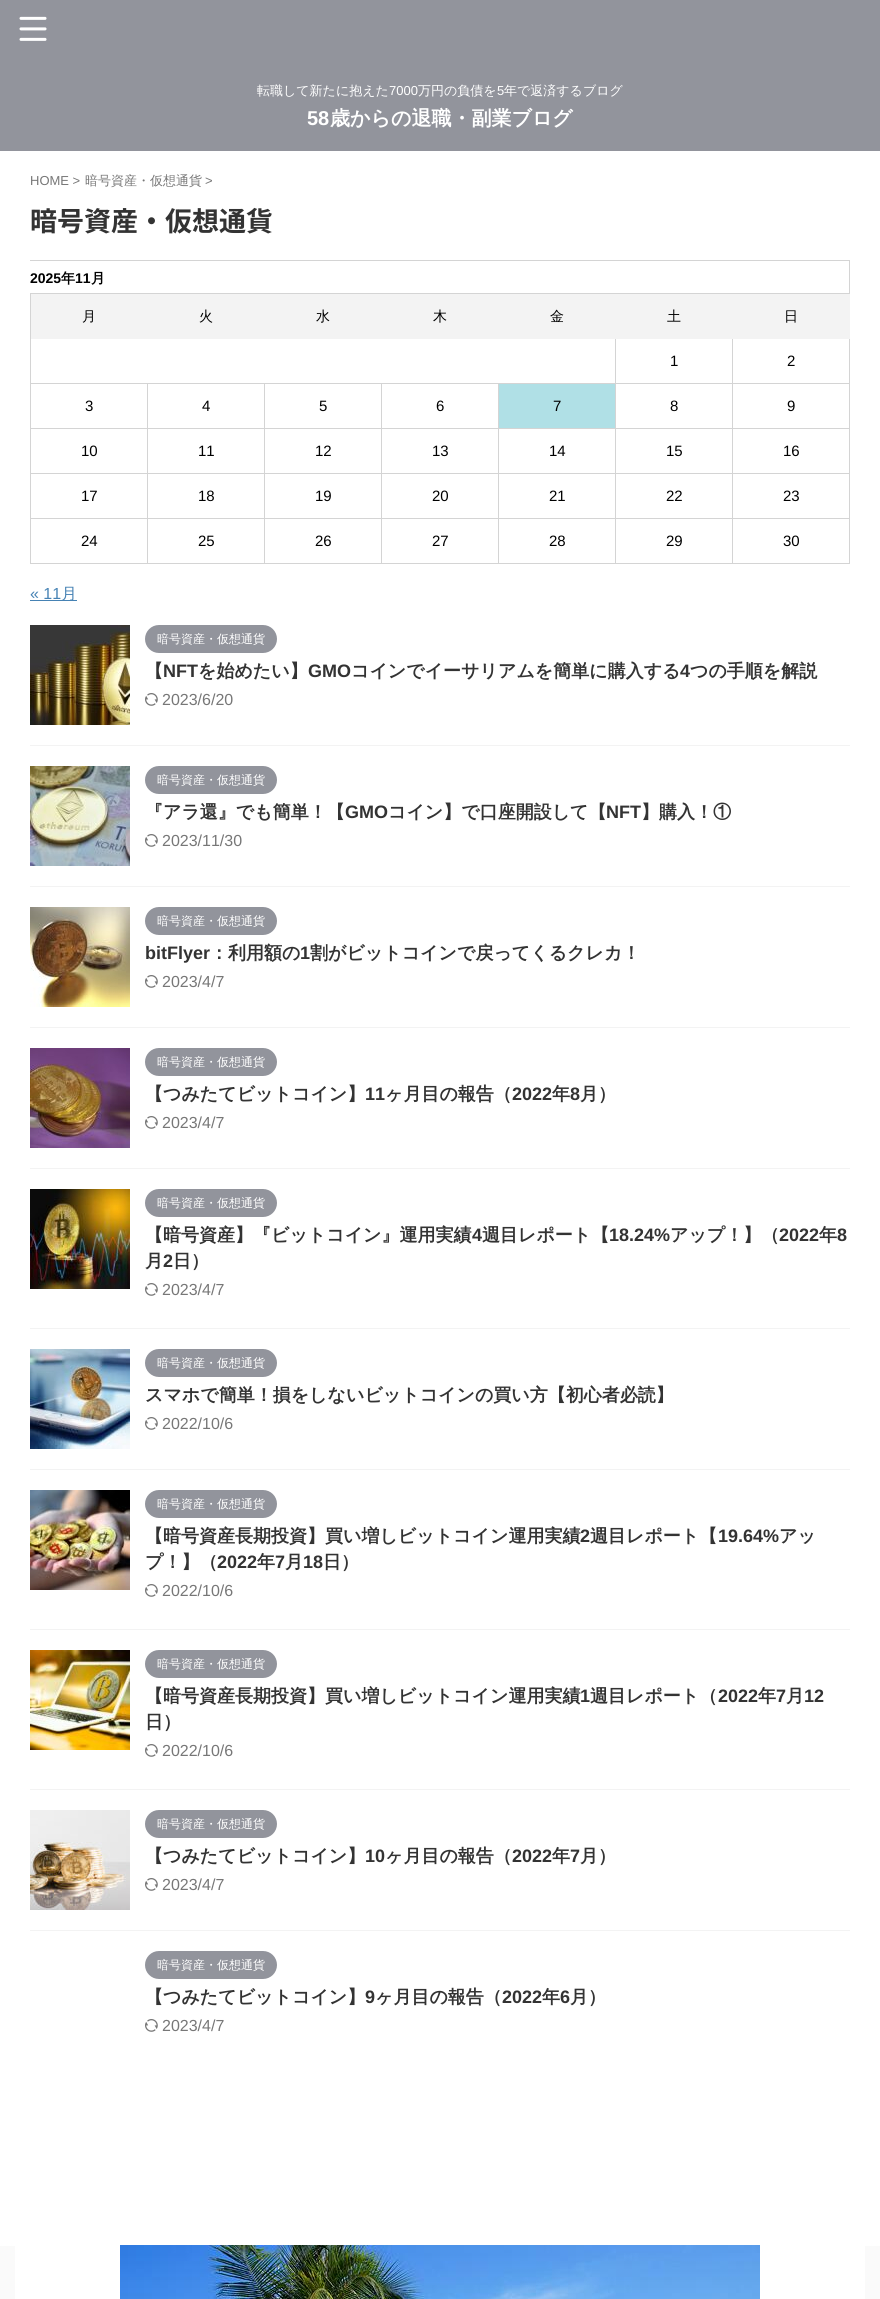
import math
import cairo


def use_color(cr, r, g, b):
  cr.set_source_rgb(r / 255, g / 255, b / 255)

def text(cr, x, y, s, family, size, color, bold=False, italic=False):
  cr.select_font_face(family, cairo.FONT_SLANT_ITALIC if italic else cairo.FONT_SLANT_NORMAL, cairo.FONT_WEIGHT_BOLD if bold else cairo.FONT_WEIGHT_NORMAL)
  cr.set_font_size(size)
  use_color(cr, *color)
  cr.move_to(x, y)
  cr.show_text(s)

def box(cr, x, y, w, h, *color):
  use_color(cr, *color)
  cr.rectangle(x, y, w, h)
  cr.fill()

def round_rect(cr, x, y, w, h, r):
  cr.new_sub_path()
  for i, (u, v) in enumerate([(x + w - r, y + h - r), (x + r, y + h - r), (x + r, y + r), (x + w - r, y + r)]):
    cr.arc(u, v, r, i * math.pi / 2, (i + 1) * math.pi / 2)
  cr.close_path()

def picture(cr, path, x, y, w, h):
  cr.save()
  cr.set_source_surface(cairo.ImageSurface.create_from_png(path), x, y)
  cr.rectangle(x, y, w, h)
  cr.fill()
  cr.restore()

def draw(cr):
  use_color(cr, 250, 250, 250)
  cr.paint()
  box(cr, 0, 0, 880, 151, 146, 148, 156)
  picture(cr, "img_01.png", 19, 16, 28, 25)
  box(cr, 0, 151, 880, 2095, 255, 255, 255)
  box(cr, 30, 260, 820, 1, 212, 212, 212)
  box(cr, 849, 260, 1, 304, 212, 212, 212)
  box(cr, 30, 293, 820, 1, 212, 212, 212)
  box(cr, 732, 563, 118, 1, 212, 212, 212)
  box(cr, 732, 518, 1, 46, 212, 212, 212)
  box(cr, 732, 518, 118, 1, 212, 212, 212)
  box(cr, 732, 473, 1, 46, 212, 212, 212)
  box(cr, 732, 473, 118, 1, 212, 212, 212)
  box(cr, 732, 428, 1, 46, 212, 212, 212)
  box(cr, 732, 428, 118, 1, 212, 212, 212)
  box(cr, 732, 383, 1, 46, 212, 212, 212)
  box(cr, 732, 383, 118, 1, 212, 212, 212)
  box(cr, 732, 338, 1, 46, 212, 212, 212)
  box(cr, 615, 563, 118, 1, 212, 212, 212)
  box(cr, 615, 518, 1, 46, 212, 212, 212)
  box(cr, 615, 518, 118, 1, 212, 212, 212)
  box(cr, 615, 473, 1, 46, 212, 212, 212)
  box(cr, 615, 473, 118, 1, 212, 212, 212)
  box(cr, 615, 428, 1, 46, 212, 212, 212)
  box(cr, 615, 428, 118, 1, 212, 212, 212)
  box(cr, 615, 383, 1, 46, 212, 212, 212)
  box(cr, 615, 383, 118, 1, 212, 212, 212)
  box(cr, 615, 338, 1, 46, 212, 212, 212)
  box(cr, 31, 294, 819, 45, 243, 243, 243)
  box(cr, 498, 563, 118, 1, 212, 212, 212)
  box(cr, 498, 518, 1, 46, 212, 212, 212)
  box(cr, 498, 518, 118, 1, 212, 212, 212)
  box(cr, 498, 473, 1, 46, 212, 212, 212)
  box(cr, 498, 473, 118, 1, 212, 212, 212)
  box(cr, 498, 428, 1, 46, 212, 212, 212)
  box(cr, 498, 428, 118, 1, 212, 212, 212)
  box(cr, 498, 383, 1, 46, 212, 212, 212)
  box(cr, 381, 563, 118, 1, 212, 212, 212)
  box(cr, 381, 518, 1, 46, 212, 212, 212)
  box(cr, 381, 518, 118, 1, 212, 212, 212)
  box(cr, 381, 473, 1, 46, 212, 212, 212)
  box(cr, 381, 473, 118, 1, 212, 212, 212)
  box(cr, 381, 428, 1, 46, 212, 212, 212)
  box(cr, 381, 428, 118, 1, 212, 212, 212)
  box(cr, 381, 383, 1, 46, 212, 212, 212)
  box(cr, 264, 563, 118, 1, 212, 212, 212)
  box(cr, 264, 518, 1, 46, 212, 212, 212)
  box(cr, 264, 518, 118, 1, 212, 212, 212)
  box(cr, 264, 473, 1, 46, 212, 212, 212)
  box(cr, 264, 473, 118, 1, 212, 212, 212)
  box(cr, 264, 428, 1, 46, 212, 212, 212)
  box(cr, 264, 428, 118, 1, 212, 212, 212)
  box(cr, 264, 383, 1, 46, 212, 212, 212)
  box(cr, 147, 563, 118, 1, 212, 212, 212)
  box(cr, 147, 518, 1, 46, 212, 212, 212)
  box(cr, 147, 518, 118, 1, 212, 212, 212)
  box(cr, 147, 473, 1, 46, 212, 212, 212)
  box(cr, 147, 473, 118, 1, 212, 212, 212)
  box(cr, 147, 428, 1, 46, 212, 212, 212)
  box(cr, 147, 428, 118, 1, 212, 212, 212)
  box(cr, 147, 383, 1, 46, 212, 212, 212)
  box(cr, 30, 563, 118, 1, 212, 212, 212)
  box(cr, 30, 518, 1, 46, 212, 212, 212)
  box(cr, 30, 518, 118, 1, 212, 212, 212)
  box(cr, 30, 473, 1, 46, 212, 212, 212)
  box(cr, 30, 473, 118, 1, 212, 212, 212)
  box(cr, 30, 428, 1, 46, 212, 212, 212)
  box(cr, 30, 428, 118, 1, 212, 212, 212)
  box(cr, 30, 383, 1, 46, 212, 212, 212)
  box(cr, 30, 383, 586, 1, 212, 212, 212)
  box(cr, 30, 293, 1, 91, 212, 212, 212)
  box(cr, 499, 384, 116, 44, 176, 224, 230)
  box(cr, 30, 600, 47, 1, 70, 130, 180)
  box(cr, 30, 745, 820, 1, 243, 243, 243)
  picture(cr, "img_02.png", 30, 625, 100, 100)
  use_color(cr, 146, 148, 156)
  round_rect(cr, 145, 625, 132, 28, 14)
  cr.fill()
  picture(cr, "img_03.png", 145, 693, 13, 13)
  box(cr, 30, 886, 820, 1, 243, 243, 243)
  picture(cr, "img_04.png", 30, 766, 100, 100)
  use_color(cr, 146, 148, 156)
  round_rect(cr, 145, 766, 132, 28, 14)
  cr.fill()
  picture(cr, "img_03.png", 145, 834, 13, 13)
  box(cr, 30, 1027, 820, 1, 243, 243, 243)
  picture(cr, "img_05.png", 30, 907, 100, 100)
  use_color(cr, 146, 148, 156)
  round_rect(cr, 145, 907, 132, 28, 14)
  cr.fill()
  picture(cr, "img_03.png", 145, 975, 13, 13)
  box(cr, 30, 1168, 820, 1, 243, 243, 243)
  picture(cr, "img_06.png", 30, 1048, 100, 100)
  use_color(cr, 146, 148, 156)
  round_rect(cr, 145, 1048, 132, 28, 14)
  cr.fill()
  picture(cr, "img_03.png", 145, 1116, 13, 13)
  box(cr, 30, 1328, 820, 1, 243, 243, 243)
  picture(cr, "img_07.png", 30, 1189, 100, 100)
  use_color(cr, 146, 148, 156)
  round_rect(cr, 145, 1189, 132, 28, 14)
  cr.fill()
  picture(cr, "img_03.png", 145, 1283, 13, 13)
  box(cr, 30, 1469, 820, 1, 243, 243, 243)
  picture(cr, "img_08.png", 30, 1349, 100, 100)
  use_color(cr, 146, 148, 156)
  round_rect(cr, 145, 1349, 132, 28, 14)
  cr.fill()
  picture(cr, "img_03.png", 145, 1417, 13, 13)
  box(cr, 30, 1629, 820, 1, 243, 243, 243)
  picture(cr, "img_09.png", 30, 1490, 100, 100)
  use_color(cr, 146, 148, 156)
  round_rect(cr, 145, 1490, 132, 28, 14)
  cr.fill()
  picture(cr, "img_03.png", 145, 1584, 13, 13)
  box(cr, 30, 1789, 820, 1, 243, 243, 243)
  picture(cr, "img_10.png", 30, 1650, 100, 100)
  use_color(cr, 146, 148, 156)
  round_rect(cr, 145, 1650, 132, 28, 14)
  cr.fill()
  picture(cr, "img_03.png", 145, 1744, 13, 13)
  box(cr, 30, 1930, 820, 1, 243, 243, 243)
  picture(cr, "img_11.png", 30, 1810, 100, 100)
  use_color(cr, 146, 148, 156)
  round_rect(cr, 145, 1810, 132, 28, 14)
  cr.fill()
  picture(cr, "img_03.png", 145, 1878, 13, 13)
  round_rect(cr, 145, 1951, 132, 28, 14)
  cr.fill()
  picture(cr, "img_03.png", 145, 2019, 13, 13)
  box(cr, 15, 2246, 850, 53, 255, 255, 255)
  picture(cr, "img_12.png", 120, 2245, 640, 54)
  text(cr, 257, 95, "転職して新たに抱えた", "WenQuanYi Zen Hei Medium", 13, (255, 255, 255))
  text(cr, 389, 95, "7000", "Liberation Sans", 13, (255, 255, 255))
  text(cr, 418, 95, "万円の負債を", "WenQuanYi Zen Hei Medium", 13, (255, 255, 255))
  text(cr, 497, 95, "5", "Liberation Sans", 13, (255, 255, 255))
  text(cr, 504, 95, "年で返済するブログ", "WenQuanYi Zen Hei Medium", 13, (255, 255, 255))
  text(cr, 307, 125, "58", "Liberation Sans", 20, (255, 255, 255), bold=True)
  text(cr, 330, 125, "歳からの退職・副業ブログ", "WenQuanYi Zen Hei", 20, (255, 255, 255), bold=True)
  text(cr, 30, 185, "HOME >", "Liberation Sans", 13, (119, 119, 119))
  text(cr, 85, 185, "暗号資産・仮想通貨", "WenQuanYi Zen Hei Medium", 13, (119, 119, 119))
  text(cr, 205, 185, ">", "Liberation Sans", 13, (119, 119, 119))
  text(cr, 30, 231, "暗号資産・仮想通貨", "Noto Sans JP", 27, (51, 51, 51), bold=True)
  text(cr, 30, 283, "2025", "Liberation Sans", 14, (0, 0, 0), bold=True)
  text(cr, 61, 283, "年", "WenQuanYi Zen Hei", 14, (0, 0, 0), bold=True)
  text(cr, 75, 283, "11", "Liberation Sans", 14, (0, 0, 0), bold=True)
  text(cr, 91, 283, "月", "WenQuanYi Zen Hei", 14, (0, 0, 0), bold=True)
  text(cr, 82, 321, "月", "WenQuanYi Zen Hei Medium", 14, (0, 0, 0))
  text(cr, 199, 321, "火", "WenQuanYi Zen Hei Medium", 14, (0, 0, 0))
  text(cr, 316, 321, "水", "WenQuanYi Zen Hei Medium", 14, (0, 0, 0))
  text(cr, 433, 321, "木", "WenQuanYi Zen Hei Medium", 14, (0, 0, 0))
  text(cr, 550, 321, "金", "WenQuanYi Zen Hei Medium", 14, (0, 0, 0))
  text(cr, 667, 321, "土", "WenQuanYi Zen Hei Medium", 14, (0, 0, 0))
  text(cr, 784, 321, "日", "WenQuanYi Zen Hei Medium", 14, (0, 0, 0))
  text(cr, 670, 366, "1", "Liberation Sans", 15, (0, 0, 0))
  text(cr, 787, 366, "2", "Liberation Sans", 15, (0, 0, 0))
  text(cr, 85, 411, "3", "Liberation Sans", 15, (0, 0, 0))
  text(cr, 202, 411, "4", "Liberation Sans", 15, (0, 0, 0))
  text(cr, 319, 411, "5", "Liberation Sans", 15, (0, 0, 0))
  text(cr, 436, 411, "6", "Liberation Sans", 15, (0, 0, 0))
  text(cr, 553, 411, "7", "Liberation Sans", 15, (0, 0, 0))
  text(cr, 670, 411, "8", "Liberation Sans", 15, (0, 0, 0))
  text(cr, 787, 411, "9", "Liberation Sans", 15, (0, 0, 0))
  text(cr, 81, 456, "10", "Liberation Sans", 15, (0, 0, 0))
  text(cr, 198, 456, "11", "Liberation Sans", 15, (0, 0, 0))
  text(cr, 315, 456, "12", "Liberation Sans", 15, (0, 0, 0))
  text(cr, 432, 456, "13", "Liberation Sans", 15, (0, 0, 0))
  text(cr, 549, 456, "14", "Liberation Sans", 15, (0, 0, 0))
  text(cr, 666, 456, "15", "Liberation Sans", 15, (0, 0, 0))
  text(cr, 783, 456, "16", "Liberation Sans", 15, (0, 0, 0))
  text(cr, 81, 501, "17", "Liberation Sans", 15, (0, 0, 0))
  text(cr, 198, 501, "18", "Liberation Sans", 15, (0, 0, 0))
  text(cr, 315, 501, "19", "Liberation Sans", 15, (0, 0, 0))
  text(cr, 432, 501, "20", "Liberation Sans", 15, (0, 0, 0))
  text(cr, 549, 501, "21", "Liberation Sans", 15, (0, 0, 0))
  text(cr, 666, 501, "22", "Liberation Sans", 15, (0, 0, 0))
  text(cr, 783, 501, "23", "Liberation Sans", 15, (0, 0, 0))
  text(cr, 81, 546, "24", "Liberation Sans", 15, (0, 0, 0))
  text(cr, 198, 546, "25", "Liberation Sans", 15, (0, 0, 0))
  text(cr, 315, 546, "26", "Liberation Sans", 15, (0, 0, 0))
  text(cr, 432, 546, "27", "Liberation Sans", 15, (0, 0, 0))
  text(cr, 549, 546, "28", "Liberation Sans", 15, (0, 0, 0))
  text(cr, 666, 546, "29", "Liberation Sans", 15, (0, 0, 0))
  text(cr, 783, 546, "30", "Liberation Sans", 15, (0, 0, 0))
  text(cr, 30, 599, "« 11", "Liberation Sans", 16, (70, 130, 180))
  text(cr, 61, 599, "月", "WenQuanYi Zen Hei Medium", 16, (70, 130, 180))
  text(cr, 157, 643, "暗号資産・仮想通貨", "WenQuanYi Zen Hei Medium", 12, (255, 255, 255))
  text(cr, 145, 677, "【", "WenQuanYi Zen Hei", 18, (51, 51, 51), bold=True)
  text(cr, 163, 677, "NFT", "Liberation Sans", 18, (51, 51, 51), bold=True)
  text(cr, 198, 677, "を始めたい】", "WenQuanYi Zen Hei", 18, (51, 51, 51), bold=True)
  text(cr, 308, 677, "GMO", "Liberation Sans", 18, (51, 51, 51), bold=True)
  text(cr, 351, 677, "コインでイーサリアムを簡単に購入する", "WenQuanYi Zen Hei", 18, (51, 51, 51), bold=True)
  text(cr, 680, 677, "4", "Liberation Sans", 18, (51, 51, 51), bold=True)
  text(cr, 690, 677, "つの手順を解説", "WenQuanYi Zen Hei", 18, (51, 51, 51), bold=True)
  text(cr, 162, 705, "2023/6/20", "Liberation Sans", 16, (119, 119, 119))
  text(cr, 157, 784, "暗号資産・仮想通貨", "WenQuanYi Zen Hei Medium", 12, (255, 255, 255))
  text(cr, 145, 818, "『アラ還』でも簡単！【", "WenQuanYi Zen Hei", 18, (51, 51, 51), bold=True)
  text(cr, 345, 818, "GMO", "Liberation Sans", 18, (51, 51, 51), bold=True)
  text(cr, 388, 818, "コイン】で口座開設して【", "WenQuanYi Zen Hei", 18, (51, 51, 51), bold=True)
  text(cr, 606, 818, "NFT", "Liberation Sans", 18, (51, 51, 51), bold=True)
  text(cr, 641, 818, "】購入！①", "WenQuanYi Zen Hei", 18, (51, 51, 51), bold=True)
  text(cr, 162, 846, "2023/11/30", "Liberation Sans", 16, (119, 119, 119))
  text(cr, 157, 925, "暗号資産・仮想通貨", "WenQuanYi Zen Hei Medium", 12, (255, 255, 255))
  text(cr, 145, 959, "bitFlyer", "Liberation Sans", 18, (51, 51, 51), bold=True)
  text(cr, 210, 959, "：利用額の", "WenQuanYi Zen Hei", 18, (51, 51, 51), bold=True)
  text(cr, 300, 959, "1", "Liberation Sans", 18, (51, 51, 51), bold=True)
  text(cr, 310, 959, "割がビットコインで戻ってくるクレカ！", "WenQuanYi Zen Hei", 18, (51, 51, 51), bold=True)
  text(cr, 162, 987, "2023/4/7", "Liberation Sans", 16, (119, 119, 119))
  text(cr, 157, 1066, "暗号資産・仮想通貨", "WenQuanYi Zen Hei Medium", 12, (255, 255, 255))
  text(cr, 145, 1100, "【つみたてビットコイン】", "WenQuanYi Zen Hei", 18, (51, 51, 51), bold=True)
  text(cr, 365, 1100, "11", "Liberation Sans", 18, (51, 51, 51), bold=True)
  text(cr, 385, 1100, "ヶ月目の報告（", "WenQuanYi Zen Hei", 18, (51, 51, 51), bold=True)
  text(cr, 512, 1100, "2022", "Liberation Sans", 18, (51, 51, 51), bold=True)
  text(cr, 552, 1100, "年", "WenQuanYi Zen Hei", 18, (51, 51, 51), bold=True)
  text(cr, 570, 1100, "8", "Liberation Sans", 18, (51, 51, 51), bold=True)
  text(cr, 580, 1100, "月）", "WenQuanYi Zen Hei", 18, (51, 51, 51), bold=True)
  text(cr, 162, 1128, "2023/4/7", "Liberation Sans", 16, (119, 119, 119))
  text(cr, 157, 1207, "暗号資産・仮想通貨", "WenQuanYi Zen Hei Medium", 12, (255, 255, 255))
  text(cr, 145, 1241, "【暗号資産】『ビットコイン』運用実績", "WenQuanYi Zen Hei", 18, (51, 51, 51), bold=True)
  text(cr, 472, 1241, "4", "Liberation Sans", 18, (51, 51, 51), bold=True)
  text(cr, 482, 1241, "週目レポート【", "WenQuanYi Zen Hei", 18, (51, 51, 51), bold=True)
  text(cr, 609, 1241, "18.24%", "Liberation Sans", 18, (51, 51, 51), bold=True)
  text(cr, 670, 1241, "アップ！】（", "WenQuanYi Zen Hei", 18, (51, 51, 51), bold=True)
  text(cr, 779, 1241, "2022", "Liberation Sans", 18, (51, 51, 51), bold=True)
  text(cr, 819, 1241, "年", "WenQuanYi Zen Hei", 18, (51, 51, 51), bold=True)
  text(cr, 837, 1241, "8", "Liberation Sans", 18, (51, 51, 51), bold=True)
  text(cr, 145, 1267, "月", "WenQuanYi Zen Hei", 18, (51, 51, 51), bold=True)
  text(cr, 163, 1267, "2", "Liberation Sans", 18, (51, 51, 51), bold=True)
  text(cr, 173, 1267, "日）", "WenQuanYi Zen Hei", 18, (51, 51, 51), bold=True)
  text(cr, 162, 1295, "2023/4/7", "Liberation Sans", 16, (119, 119, 119))
  text(cr, 157, 1367, "暗号資産・仮想通貨", "WenQuanYi Zen Hei Medium", 12, (255, 255, 255))
  text(cr, 145, 1401, "スマホで簡単！損をしないビットコインの買い方【初心者必読】", "WenQuanYi Zen Hei", 18, (51, 51, 51), bold=True)
  text(cr, 162, 1429, "2022/10/6", "Liberation Sans", 16, (119, 119, 119))
  text(cr, 157, 1508, "暗号資産・仮想通貨", "WenQuanYi Zen Hei Medium", 12, (255, 255, 255))
  text(cr, 145, 1542, "【暗号資産長期投資】買い増しビットコイン運用実績", "WenQuanYi Zen Hei", 18, (51, 51, 51), bold=True)
  text(cr, 580, 1542, "2", "Liberation Sans", 18, (51, 51, 51), bold=True)
  text(cr, 590, 1542, "週目レポート【", "WenQuanYi Zen Hei", 18, (51, 51, 51), bold=True)
  text(cr, 718, 1542, "19.64%", "Liberation Sans", 18, (51, 51, 51), bold=True)
  text(cr, 779, 1542, "アッ", "WenQuanYi Zen Hei", 18, (51, 51, 51), bold=True)
  text(cr, 145, 1568, "プ！】（", "WenQuanYi Zen Hei", 18, (51, 51, 51), bold=True)
  text(cr, 217, 1568, "2022", "Liberation Sans", 18, (51, 51, 51), bold=True)
  text(cr, 257, 1568, "年", "WenQuanYi Zen Hei", 18, (51, 51, 51), bold=True)
  text(cr, 275, 1568, "7", "Liberation Sans", 18, (51, 51, 51), bold=True)
  text(cr, 285, 1568, "月", "WenQuanYi Zen Hei", 18, (51, 51, 51), bold=True)
  text(cr, 303, 1568, "18", "Liberation Sans", 18, (51, 51, 51), bold=True)
  text(cr, 323, 1568, "日）", "WenQuanYi Zen Hei", 18, (51, 51, 51), bold=True)
  text(cr, 162, 1596, "2022/10/6", "Liberation Sans", 16, (119, 119, 119))
  text(cr, 157, 1668, "暗号資産・仮想通貨", "WenQuanYi Zen Hei Medium", 12, (255, 255, 255))
  text(cr, 145, 1702, "【暗号資産長期投資】買い増しビットコイン運用実績", "WenQuanYi Zen Hei", 18, (51, 51, 51), bold=True)
  text(cr, 580, 1702, "1", "Liberation Sans", 18, (51, 51, 51), bold=True)
  text(cr, 590, 1702, "週目レポート（", "WenQuanYi Zen Hei", 18, (51, 51, 51), bold=True)
  text(cr, 718, 1702, "2022", "Liberation Sans", 18, (51, 51, 51), bold=True)
  text(cr, 758, 1702, "年", "WenQuanYi Zen Hei", 18, (51, 51, 51), bold=True)
  text(cr, 776, 1702, "7", "Liberation Sans", 18, (51, 51, 51), bold=True)
  text(cr, 786, 1702, "月", "WenQuanYi Zen Hei", 18, (51, 51, 51), bold=True)
  text(cr, 804, 1702, "12", "Liberation Sans", 18, (51, 51, 51), bold=True)
  text(cr, 145, 1728, "日）", "WenQuanYi Zen Hei", 18, (51, 51, 51), bold=True)
  text(cr, 162, 1756, "2022/10/6", "Liberation Sans", 16, (119, 119, 119))
  text(cr, 157, 1828, "暗号資産・仮想通貨", "WenQuanYi Zen Hei Medium", 12, (255, 255, 255))
  text(cr, 145, 1862, "【つみたてビットコイン】", "WenQuanYi Zen Hei", 18, (51, 51, 51), bold=True)
  text(cr, 365, 1862, "10", "Liberation Sans", 18, (51, 51, 51), bold=True)
  text(cr, 385, 1862, "ヶ月目の報告（", "WenQuanYi Zen Hei", 18, (51, 51, 51), bold=True)
  text(cr, 512, 1862, "2022", "Liberation Sans", 18, (51, 51, 51), bold=True)
  text(cr, 552, 1862, "年", "WenQuanYi Zen Hei", 18, (51, 51, 51), bold=True)
  text(cr, 570, 1862, "7", "Liberation Sans", 18, (51, 51, 51), bold=True)
  text(cr, 580, 1862, "月）", "WenQuanYi Zen Hei", 18, (51, 51, 51), bold=True)
  text(cr, 162, 1890, "2023/4/7", "Liberation Sans", 16, (119, 119, 119))
  text(cr, 157, 1969, "暗号資産・仮想通貨", "WenQuanYi Zen Hei Medium", 12, (255, 255, 255))
  text(cr, 145, 2003, "【つみたてビットコイン】", "WenQuanYi Zen Hei", 18, (51, 51, 51), bold=True)
  text(cr, 365, 2003, "9", "Liberation Sans", 18, (51, 51, 51), bold=True)
  text(cr, 375, 2003, "ヶ月目の報告（", "WenQuanYi Zen Hei", 18, (51, 51, 51), bold=True)
  text(cr, 502, 2003, "2022", "Liberation Sans", 18, (51, 51, 51), bold=True)
  text(cr, 542, 2003, "年", "WenQuanYi Zen Hei", 18, (51, 51, 51), bold=True)
  text(cr, 560, 2003, "6", "Liberation Sans", 18, (51, 51, 51), bold=True)
  text(cr, 570, 2003, "月）", "WenQuanYi Zen Hei", 18, (51, 51, 51), bold=True)
  text(cr, 162, 2031, "2023/4/7", "Liberation Sans", 16, (119, 119, 119))


surface = cairo.ImageSurface(cairo.FORMAT_RGB24, 880, 2299)
cr = cairo.Context(surface)
options = cairo.FontOptions()
options.set_hint_metrics(cairo.HINT_METRICS_OFF)
options.set_hint_style(cairo.HINT_STYLE_NONE)
cr.set_font_options(options)
cr.set_miter_limit(4)
draw(cr)
surface.write_to_png("out.png")
